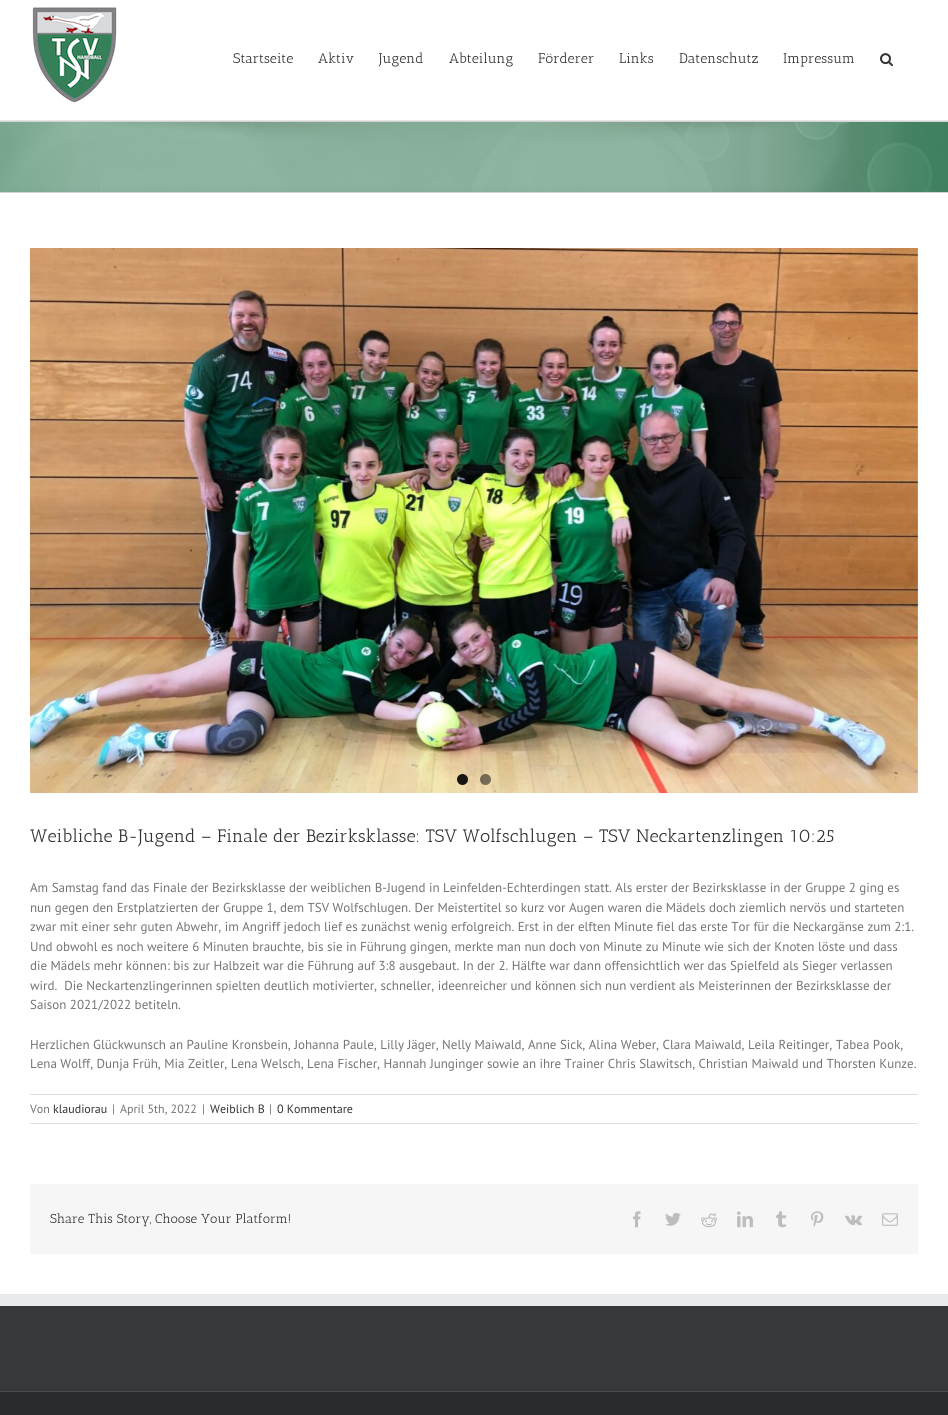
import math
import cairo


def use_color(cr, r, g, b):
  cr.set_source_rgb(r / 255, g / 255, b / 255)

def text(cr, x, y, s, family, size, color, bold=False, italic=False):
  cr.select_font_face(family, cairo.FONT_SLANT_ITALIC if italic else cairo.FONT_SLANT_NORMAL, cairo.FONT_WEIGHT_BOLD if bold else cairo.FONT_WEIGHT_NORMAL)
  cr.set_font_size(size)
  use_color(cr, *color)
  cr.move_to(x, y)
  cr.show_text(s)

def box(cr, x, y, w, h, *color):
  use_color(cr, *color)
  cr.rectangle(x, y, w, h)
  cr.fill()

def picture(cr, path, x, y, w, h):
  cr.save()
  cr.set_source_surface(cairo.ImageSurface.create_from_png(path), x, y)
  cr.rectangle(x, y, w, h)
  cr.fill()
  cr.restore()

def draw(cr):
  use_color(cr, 255, 255, 255)
  cr.paint()
  box(cr, 0, 120, 948, 1, 229, 229, 229)
  picture(cr, "img_01.png", 32, 7, 85, 96)
  picture(cr, "img_02.png", 880, 53, 13, 14)
  box(cr, 0, 122, 948, 70, 56, 128, 91)
  picture(cr, "img_03.png", 0, 122, 948, 70)
  box(cr, 0, 121, 948, 1, 210, 211, 212)
  box(cr, 0, 192, 948, 1, 210, 211, 212)
  picture(cr, "img_04.png", 30, 248, 888, 545)
  cr.set_source_rgba(0, 0, 0, 0.9)
  cr.arc(462.5, 779.5, 5.5, 0, 2 * math.pi)
  cr.fill()
  cr.set_source_rgba(0, 0, 0, 0.5)
  cr.arc(485.5, 779.5, 5.5, 0, 2 * math.pi)
  cr.fill()
  box(cr, 30, 1094, 888, 1, 224, 222, 222)
  box(cr, 30, 1123, 888, 1, 224, 222, 222)
  box(cr, 30, 1184, 888, 70, 246, 246, 246)
  picture(cr, "img_05.png", 633, 1211, 8, 17)
  picture(cr, "img_06.png", 665, 1212, 16, 14)
  picture(cr, "img_07.png", 701, 1213, 16, 15)
  picture(cr, "img_08.png", 737, 1211, 16, 17)
  picture(cr, "img_09.png", 776, 1211, 10, 17)
  picture(cr, "img_10.png", 810, 1211, 14, 16)
  picture(cr, "img_11.png", 845, 1215, 17, 11)
  picture(cr, "img_12.png", 882, 1213, 16, 13)
  box(cr, 0, 1306, 948, 85, 54, 56, 57)
  box(cr, 0, 1294, 948, 12, 233, 234, 238)
  box(cr, 0, 1392, 948, 23, 40, 42, 43)
  box(cr, 0, 1391, 948, 1, 75, 76, 77)
  text(cr, 233, 63, "Startseite", "Antic Slab", 14, (51, 51, 51))
  text(cr, 318, 63, "Aktiv", "Antic Slab", 14, (51, 51, 51))
  text(cr, 379, 63, "Jugend", "Antic Slab", 14, (51, 51, 51))
  text(cr, 449, 63, "Abteilung", "Antic Slab", 14, (51, 51, 51))
  text(cr, 538, 63, "Förderer", "Antic Slab", 14, (51, 51, 51))
  text(cr, 619, 63, "Links", "Antic Slab", 14, (51, 51, 51))
  text(cr, 679, 63, "Datenschutz", "Antic Slab", 14, (51, 51, 51))
  text(cr, 783, 63, "Impressum", "Antic Slab", 14, (51, 51, 51))
  text(cr, 30, 842, "Weibliche B-Jugend – Finale der Bezirksklasse: TSV Wolfschlugen – TSV Neckartenzlingen 10:25", "Antic Slab", 18, (51, 51, 51))
  text(cr, 30, 892, "Am Samstag fand das Finale der Bezirksklasse der weiblichen B-Jugend in Leinfelden-Echterdingen statt. Als erster der Bezirksklasse in der Gruppe 2 ging es", "PT Sans", 13, (116, 116, 116))
  text(cr, 30, 912, "nun gegen den Erstplatzierten der Gruppe 1, dem TSV Wolfschlugen. Der Meistertitel so kurz vor Augen waren die Mädels doch ziemlich nervös und starteten", "PT Sans", 13, (116, 116, 116))
  text(cr, 30, 931, "zwar mit einer sehr guten Abwehr, im Angriff jedoch lief es zunächst wenig erfolgreich. Erst in der elften Minute fiel das erste Tor für die Neckargänse zum 2:1.", "PT Sans", 13, (116, 116, 116))
  text(cr, 30, 951, "Und obwohl es noch weitere 6 Minuten brauchte, bis sie in Führung gingen, merkte man nun doch von Minute zu Minute wie sich der Knoten löste und dass", "PT Sans", 13, (116, 116, 116))
  text(cr, 30, 970, "die Mädels mehr können: bis zur Halbzeit war die Führung auf 3:8 ausgebaut. In der 2. Hälfte war dann offensichtlich wer das Spielfeld als Sieger verlassen", "PT Sans", 13, (116, 116, 116))
  text(cr, 30, 990, "wird.  Die Neckartenzlingerinnen spielten deutlich motivierter, schneller, ideenreicher und können sich nun verdient als Meisterinnen der Bezirksklasse der", "PT Sans", 13, (116, 116, 116))
  text(cr, 30, 1009, "Saison 2021/2022 betiteln.", "PT Sans", 13, (116, 116, 116))
  text(cr, 30, 1049, "Herzlichen Glückwunsch an Pauline Kronsbein, Johanna Paule, Lilly Jäger, Nelly Maiwald, Anne Sick, Alina Weber, Clara Maiwald, Leila Reitinger, Tabea Pook,", "PT Sans", 13, (116, 116, 116))
  text(cr, 30, 1068, "Lena Wolff, Dunja Früh, Mia Zeitler, Lena Welsch, Lena Fischer, Hannah Junginger sowie an ihre Trainer Chris Slawitsch, Christian Maiwald und Thorsten Kunze.", "PT Sans", 13, (116, 116, 116))
  text(cr, 30, 1113, "Von", "PT Sans", 12, (116, 116, 116))
  text(cr, 53, 1113, "klaudiorau", "PT Sans", 12, (51, 51, 51))
  text(cr, 112, 1113, "|", "PT Sans", 12, (116, 116, 116))
  text(cr, 120, 1113, "April 5th, 2022", "PT Sans", 12, (116, 116, 116))
  text(cr, 202, 1113, "|", "PT Sans", 12, (116, 116, 116))
  text(cr, 210, 1113, "Weiblich B", "PT Sans", 12, (51, 51, 51))
  text(cr, 269, 1113, "|", "PT Sans", 12, (116, 116, 116))
  text(cr, 277, 1113, "0 Kommentare", "PT Sans", 12, (51, 51, 51))
  text(cr, 50, 1223, "Share This Story, Choose Your Platform!", "Antic Slab", 13, (51, 51, 51))


surface = cairo.ImageSurface(cairo.FORMAT_RGB24, 948, 1415)
cr = cairo.Context(surface)
options = cairo.FontOptions()
options.set_hint_metrics(cairo.HINT_METRICS_OFF)
options.set_hint_style(cairo.HINT_STYLE_NONE)
cr.set_font_options(options)
cr.set_miter_limit(4)
draw(cr)
surface.write_to_png("out.png")
